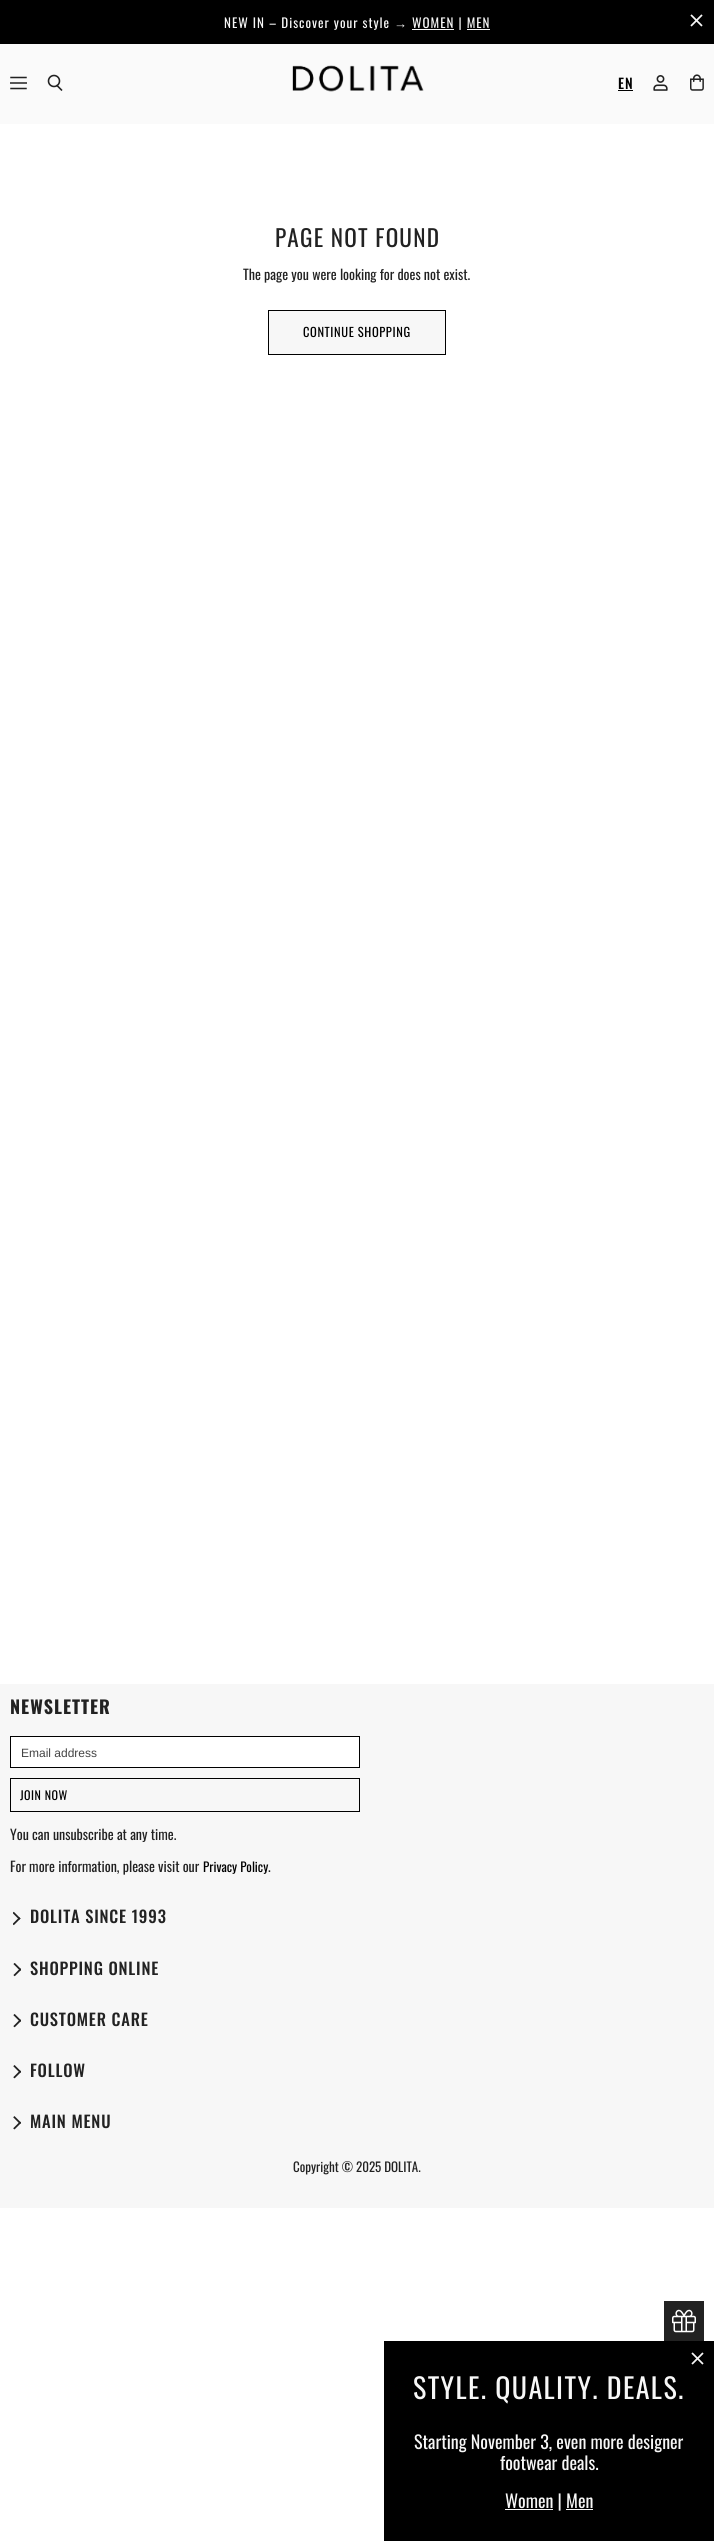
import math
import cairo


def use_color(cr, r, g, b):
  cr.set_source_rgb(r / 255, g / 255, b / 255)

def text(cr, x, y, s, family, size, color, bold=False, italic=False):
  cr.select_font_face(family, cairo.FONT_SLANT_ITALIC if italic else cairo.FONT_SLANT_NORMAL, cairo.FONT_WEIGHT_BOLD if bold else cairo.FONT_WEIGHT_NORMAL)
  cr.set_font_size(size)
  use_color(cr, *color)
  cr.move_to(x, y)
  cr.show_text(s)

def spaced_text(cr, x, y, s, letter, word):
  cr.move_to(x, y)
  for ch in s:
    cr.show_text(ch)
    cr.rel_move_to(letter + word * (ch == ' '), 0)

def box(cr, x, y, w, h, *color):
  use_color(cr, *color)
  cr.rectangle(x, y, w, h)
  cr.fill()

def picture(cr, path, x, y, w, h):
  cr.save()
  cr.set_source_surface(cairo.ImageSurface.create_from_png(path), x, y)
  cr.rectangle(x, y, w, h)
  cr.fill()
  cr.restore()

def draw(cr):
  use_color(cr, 255, 255, 255)
  cr.paint()
  box(cr, 0, 0, 714, 44, 0, 0, 0)
  box(cr, 412, 29, 42, 1, 247, 247, 247)
  box(cr, 467, 29, 23, 1, 247, 247, 247)
  picture(cr, "img_01.png", 690, 14, 13, 13)
  box(cr, 0, 44, 714, 80, 250, 250, 250)
  cr.new_path()
  cr.move_to(26, 77.5)
  cr.line_to(11, 77.5)
  use_color(cr, 34, 34, 34)
  cr.set_line_width(1.5)
  cr.set_line_cap(cairo.LINE_CAP_SQUARE)
  cr.set_line_join(cairo.LINE_JOIN_ROUND)
  cr.stroke()
  box(cr, 10, 82, 17, 2, 88, 88, 88)
  cr.new_path()
  cr.move_to(26, 88.5)
  cr.line_to(11, 88.5)
  use_color(cr, 34, 34, 34)
  cr.stroke()
  cr.new_path()
  cr.move_to(56.5, 85)
  cr.line_to(62, 90.5)
  cr.set_line_width(1.6)
  cr.set_line_cap(cairo.LINE_CAP_BUTT)
  cr.set_line_join(cairo.LINE_JOIN_MITER)
  cr.stroke()
  cr.arc(54, 81, 5.5, 0, 2 * math.pi)
  cr.stroke()
  picture(cr, "img_02.png", 292, 65, 132, 27)
  box(cr, 618, 90, 15, 1, 0, 0, 0)
  picture(cr, "img_03.png", 653, 75, 15, 16)
  picture(cr, "img_04.png", 690, 74, 14, 17)
  use_color(cr, 247, 247, 247)
  cr.rectangle(268.5, 310.5, 177, 44)
  cr.fill_preserve()
  use_color(cr, 0, 0, 0)
  cr.set_line_width(1)
  cr.stroke()
  box(cr, 0, 1684, 714, 524, 247, 247, 247)
  use_color(cr, 255, 255, 255)
  cr.rectangle(10.5, 1736.5, 349, 31)
  cr.fill_preserve()
  use_color(cr, 0, 0, 0)
  cr.stroke()
  cr.rectangle(10.5, 1778.5, 349, 33)
  cr.stroke()
  picture(cr, "img_05.png", 13, 1911, 8, 15)
  picture(cr, "img_06.png", 13, 1963, 8, 14)
  picture(cr, "img_07.png", 13, 2014, 8, 14)
  picture(cr, "img_08.png", 13, 2065, 8, 14)
  picture(cr, "img_09.png", 13, 2116, 8, 14)
  box(cr, 664, 2301, 40, 40, 34, 34, 34)
  picture(cr, "img_10.png", 672, 2309, 24, 24)
  box(cr, 384, 2341, 330, 200, 0, 0, 0)
  picture(cr, "img_11.png", 691, 2352, 13, 13)
  box(cr, 505, 2509, 48, 1, 247, 247, 247)
  box(cr, 566, 2509, 27, 1, 247, 247, 247)
  cr.select_font_face("Oswald")
  cr.set_font_size(13.1)
  spaced_text(cr, 224, 28, "NEW IN – Discover your style", 1, 0)
  cr.select_font_face("Liberation Sans")
  spaced_text(cr, 394, 28, "→", 1, 0)
  cr.select_font_face("Oswald")
  spaced_text(cr, 412, 28, "WOMEN | MEN", 1, 0)
  cr.select_font_face("Oswald Medium")
  cr.set_font_size(14)
  use_color(cr, 0, 0, 0)
  spaced_text(cr, 618, 89, "EN", 1, 0)
  cr.select_font_face("Oswald")
  cr.set_font_size(23.25)
  use_color(cr, 34, 34, 34)
  spaced_text(cr, 275, 247, "PAGE NOT FOUND", 1.2, 0)
  text(cr, 243, 280, "The page you were looking for does not exist.", "Oswald", 14, (34, 34, 34))
  cr.set_font_size(12.5)
  use_color(cr, 0, 0, 0)
  spaced_text(cr, 303, 337, "CONTINUE SHOPPING", 0.6, 0)
  cr.select_font_face("Oswald", cairo.FONT_SLANT_NORMAL, cairo.FONT_WEIGHT_BOLD)
  cr.set_font_size(18)
  use_color(cr, 34, 34, 34)
  spaced_text(cr, 10, 1714, "NEWSLETTER", 1, 0)
  text(cr, 21, 1757, "Email address", "Liberation Sans", 12, (68, 68, 68))
  cr.select_font_face("Oswald")
  use_color(cr, 0, 0, 0)
  spaced_text(cr, 20, 1800, "JOIN NOW", 0.5, 0)
  text(cr, 10, 1840, "You can unsubscribe at any time.", "Oswald", 14, (34, 34, 34))
  text(cr, 10, 1872, "For more information, please visit our", "Oswald", 14, (34, 34, 34))
  text(cr, 203, 1872, "Privacy Policy", "Oswald", 13, (0, 0, 0))
  text(cr, 268, 1872, ".", "Oswald", 14, (34, 34, 34))
  cr.select_font_face("Oswald Medium")
  cr.set_font_size(16.5)
  spaced_text(cr, 30, 1923, "DOLITA SINCE 1993", 0.8, 0)
  spaced_text(cr, 30, 1975, "SHOPPING ONLINE", 0.8, 0)
  spaced_text(cr, 30, 2026, "CUSTOMER CARE", 0.8, 0)
  spaced_text(cr, 30, 2077, "FOLLOW", 0.8, 0)
  spaced_text(cr, 30, 2128, "MAIN MENU", 0.8, 0)
  text(cr, 293, 2172, "Copyright © 2025 DOLITA.", "Oswald", 13, (34, 34, 34))
  cr.set_font_size(28)
  use_color(cr, 247, 247, 247)
  spaced_text(cr, 413, 2399, "STYLE. QUALITY. DEALS.", 1.4, 0)
  text(cr, 414, 2449, "Starting November 3, even more designer", "Oswald", 18, (247, 247, 247))
  text(cr, 500, 2470, "footwear deals.", "Oswald", 18, (247, 247, 247))
  text(cr, 505, 2508, "Women | Men", "Oswald", 18, (247, 247, 247))


surface = cairo.ImageSurface(cairo.FORMAT_RGB24, 714, 2541)
cr = cairo.Context(surface)
options = cairo.FontOptions()
options.set_hint_metrics(cairo.HINT_METRICS_OFF)
options.set_hint_style(cairo.HINT_STYLE_NONE)
cr.set_font_options(options)
cr.set_miter_limit(4)
draw(cr)
surface.write_to_png("out.png")
